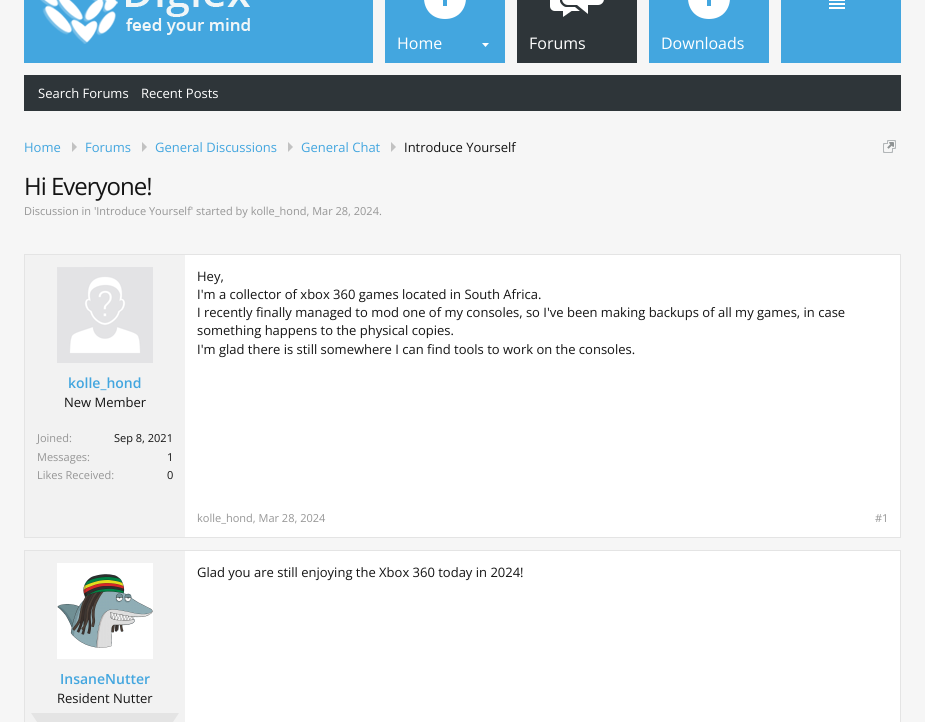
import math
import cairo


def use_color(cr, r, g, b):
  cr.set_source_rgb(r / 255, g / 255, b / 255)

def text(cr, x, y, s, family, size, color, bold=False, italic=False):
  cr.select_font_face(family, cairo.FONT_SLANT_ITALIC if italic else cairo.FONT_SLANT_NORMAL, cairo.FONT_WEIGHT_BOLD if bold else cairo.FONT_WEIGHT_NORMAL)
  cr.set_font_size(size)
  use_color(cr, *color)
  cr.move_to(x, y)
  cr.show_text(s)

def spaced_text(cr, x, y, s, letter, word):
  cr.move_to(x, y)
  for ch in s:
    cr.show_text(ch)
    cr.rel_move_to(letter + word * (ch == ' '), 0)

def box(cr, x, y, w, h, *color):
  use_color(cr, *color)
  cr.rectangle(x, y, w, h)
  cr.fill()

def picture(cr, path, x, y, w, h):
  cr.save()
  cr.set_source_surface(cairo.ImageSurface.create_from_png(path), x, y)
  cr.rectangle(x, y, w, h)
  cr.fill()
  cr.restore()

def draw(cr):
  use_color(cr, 246, 246, 246)
  cr.paint()
  box(cr, 24, 0, 877, 63, 67, 166, 223)
  picture(cr, "img_01.png", 40, 0, 210, 44)
  box(cr, 517, 0, 120, 63, 46, 53, 57)
  picture(cr, "img_02.png", 550, 0, 54, 17)
  box(cr, 505, 0, 12, 63, 246, 246, 246)
  box(cr, 24, 75, 877, 36, 46, 53, 57)
  use_color(cr, 255, 255, 255)
  cr.set_fill_rule(cairo.FILL_RULE_EVEN_ODD)
  cr.new_path()
  cr.move_to(709, -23)
  cr.curve_to(681, -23, 681, 19, 709, 19)
  cr.curve_to(737, 19, 737, -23, 709, -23)
  cr.move_to(717, 0)
  cr.line_to(711, 0)
  cr.line_to(711, 6)
  cr.line_to(707, 6)
  cr.line_to(707, 0)
  cr.line_to(701, 0)
  cr.line_to(701, -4)
  cr.line_to(707, -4)
  cr.line_to(707, -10)
  cr.line_to(711, -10)
  cr.line_to(711, -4)
  cr.line_to(717, -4)
  cr.line_to(717, 0)
  cr.fill()
  box(cr, 637, 0, 12, 63, 246, 246, 246)
  box(cr, 769, 0, 12, 63, 246, 246, 246)
  box(cr, 829, 0, 16, 1, 255, 255, 255)
  box(cr, 829, 3, 16, 2, 255, 255, 255)
  box(cr, 829, 7, 16, 2, 255, 255, 255)
  cr.new_path()
  cr.move_to(445, -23)
  cr.curve_to(417, -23, 417, 19, 445, 19)
  cr.curve_to(473, 19, 473, -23, 445, -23)
  cr.move_to(453, 0)
  cr.line_to(447, 0)
  cr.line_to(447, 6)
  cr.line_to(443, 6)
  cr.line_to(443, 0)
  cr.line_to(437, 0)
  cr.line_to(437, -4)
  cr.line_to(443, -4)
  cr.line_to(443, -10)
  cr.line_to(447, -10)
  cr.line_to(447, -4)
  cr.line_to(453, -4)
  cr.line_to(453, 0)
  cr.fill()
  box(cr, 373, 0, 12, 63, 246, 246, 246)
  picture(cr, "img_03.png", 482, 43, 7, 4)
  use_color(cr, 194, 194, 194)
  cr.set_fill_rule(cairo.FILL_RULE_WINDING)
  cr.new_path()
  cr.move_to(72, 152)
  cr.line_to(72, 142)
  cr.line_to(77, 147)
  cr.close_path()
  cr.fill()
  cr.new_path()
  cr.move_to(142, 152)
  cr.line_to(142, 142)
  cr.line_to(147, 147)
  cr.close_path()
  cr.fill()
  cr.new_path()
  cr.move_to(288, 152)
  cr.line_to(288, 142)
  cr.line_to(293, 147)
  cr.close_path()
  cr.fill()
  cr.new_path()
  cr.move_to(391, 152)
  cr.line_to(391, 142)
  cr.line_to(396, 147)
  cr.close_path()
  cr.fill()
  picture(cr, "img_04.png", 883, 140, 13, 13)
  box(cr, 25, 255, 160, 282, 242, 242, 242)
  cr.rectangle(24.5, 254.5, 876, 283)
  use_color(cr, 228, 228, 228)
  cr.set_line_width(1)
  cr.stroke()
  picture(cr, "img_05.png", 57, 267, 96, 96)
  box(cr, 185, 255, 715, 282, 255, 255, 255)
  box(cr, 25, 551, 160, 171, 242, 242, 242)
  cr.rectangle(24.5, 550.5, 876, 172)
  use_color(cr, 228, 228, 228)
  cr.stroke()
  box(cr, 185, 551, 715, 171, 255, 255, 255)
  box(cr, 57, 563, 96, 96, 255, 255, 255)
  picture(cr, "img_06.png", 57, 574, 96, 74)
  box(cr, 31, 713, 148, 9, 228, 228, 228)
  use_color(cr, 242, 242, 242)
  cr.new_path()
  cr.move_to(31, 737)
  cr.line_to(31, 713)
  cr.line_to(39, 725)
  cr.close_path()
  cr.fill()
  cr.new_path()
  cr.move_to(179, 713)
  cr.line_to(179, 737)
  cr.line_to(171, 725)
  cr.close_path()
  cr.fill()
  text(cr, 529, 49, "Forums", "Open Sans", 16, (255, 255, 255))
  text(cr, 38, 98, "Search Forums", "Open Sans", 13, (255, 255, 255))
  text(cr, 141, 98, "Recent Posts", "Open Sans", 13, (255, 255, 255))
  text(cr, 661, 49, "Downloads", "Open Sans", 16, (255, 255, 255))
  text(cr, 397, 49, "Home", "Open Sans", 16, (255, 255, 255))
  text(cr, 24, 152, "Home", "Open Sans", 13, (67, 166, 223))
  text(cr, 85, 152, "Forums", "Open Sans", 13, (67, 166, 223))
  text(cr, 155, 152, "General Discussions", "Open Sans", 13, (67, 166, 223))
  text(cr, 301, 152, "General Chat", "Open Sans", 13, (67, 166, 223))
  text(cr, 404, 152, "Introduce Yourself", "Open Sans", 13, (20, 20, 20))
  cr.set_font_size(24)
  spaced_text(cr, 24, 195, "Hi Everyone!", -1, 0)
  text(cr, 24, 215, "Discussion in 'Introduce Yourself' started by kolle_hond, Mar 28, 2024.", "Open Sans", 11, (150, 150, 150))
  text(cr, 68, 388, "kolle_hond", "Open Sans SemiBold", 14, (67, 166, 223))
  text(cr, 64, 407, "New Member", "Open Sans", 13, (20, 20, 20))
  text(cr, 37, 442, "Joined:", "Open Sans", 11, (150, 150, 150))
  text(cr, 114, 442, "Sep 8, 2021", "Open Sans", 11, (20, 20, 20))
  text(cr, 37, 461, "Messages:", "Open Sans", 11, (150, 150, 150))
  text(cr, 167, 461, "1", "Open Sans", 11, (20, 20, 20))
  text(cr, 37, 479, "Likes Received:", "Open Sans", 11, (150, 150, 150))
  text(cr, 167, 479, "0", "Open Sans", 11, (20, 20, 20))
  text(cr, 197, 281, "Hey,", "Open Sans", 13, (20, 20, 20))
  text(cr, 197, 299, "I'm a collector of xbox 360 games located in South Africa.", "Open Sans", 13, (20, 20, 20))
  text(cr, 197, 317, "I recently finally managed to mod one of my consoles, so I've been making backups of all my games, in case", "Open Sans", 13, (20, 20, 20))
  text(cr, 197, 335, "something happens to the physical copies.", "Open Sans", 13, (20, 20, 20))
  text(cr, 197, 354, "I'm glad there is still somewhere I can find tools to work on the consoles.", "Open Sans", 13, (20, 20, 20))
  text(cr, 197, 522, "kolle_hond, Mar 28, 2024", "Open Sans", 11, (150, 150, 150))
  text(cr, 875, 522, "#1", "Open Sans", 11, (150, 150, 150))
  text(cr, 197, 577, "Glad you are still enjoying the Xbox 360 today in 2024!", "Open Sans", 13, (20, 20, 20))
  text(cr, 60, 684, "InsaneNutter", "Open Sans SemiBold", 14, (67, 166, 223))
  text(cr, 57, 703, "Resident Nutter", "Open Sans", 13, (20, 20, 20))


surface = cairo.ImageSurface(cairo.FORMAT_RGB24, 925, 722)
cr = cairo.Context(surface)
options = cairo.FontOptions()
options.set_hint_metrics(cairo.HINT_METRICS_OFF)
options.set_hint_style(cairo.HINT_STYLE_NONE)
cr.set_font_options(options)
cr.set_miter_limit(4)
draw(cr)
surface.write_to_png("out.png")
